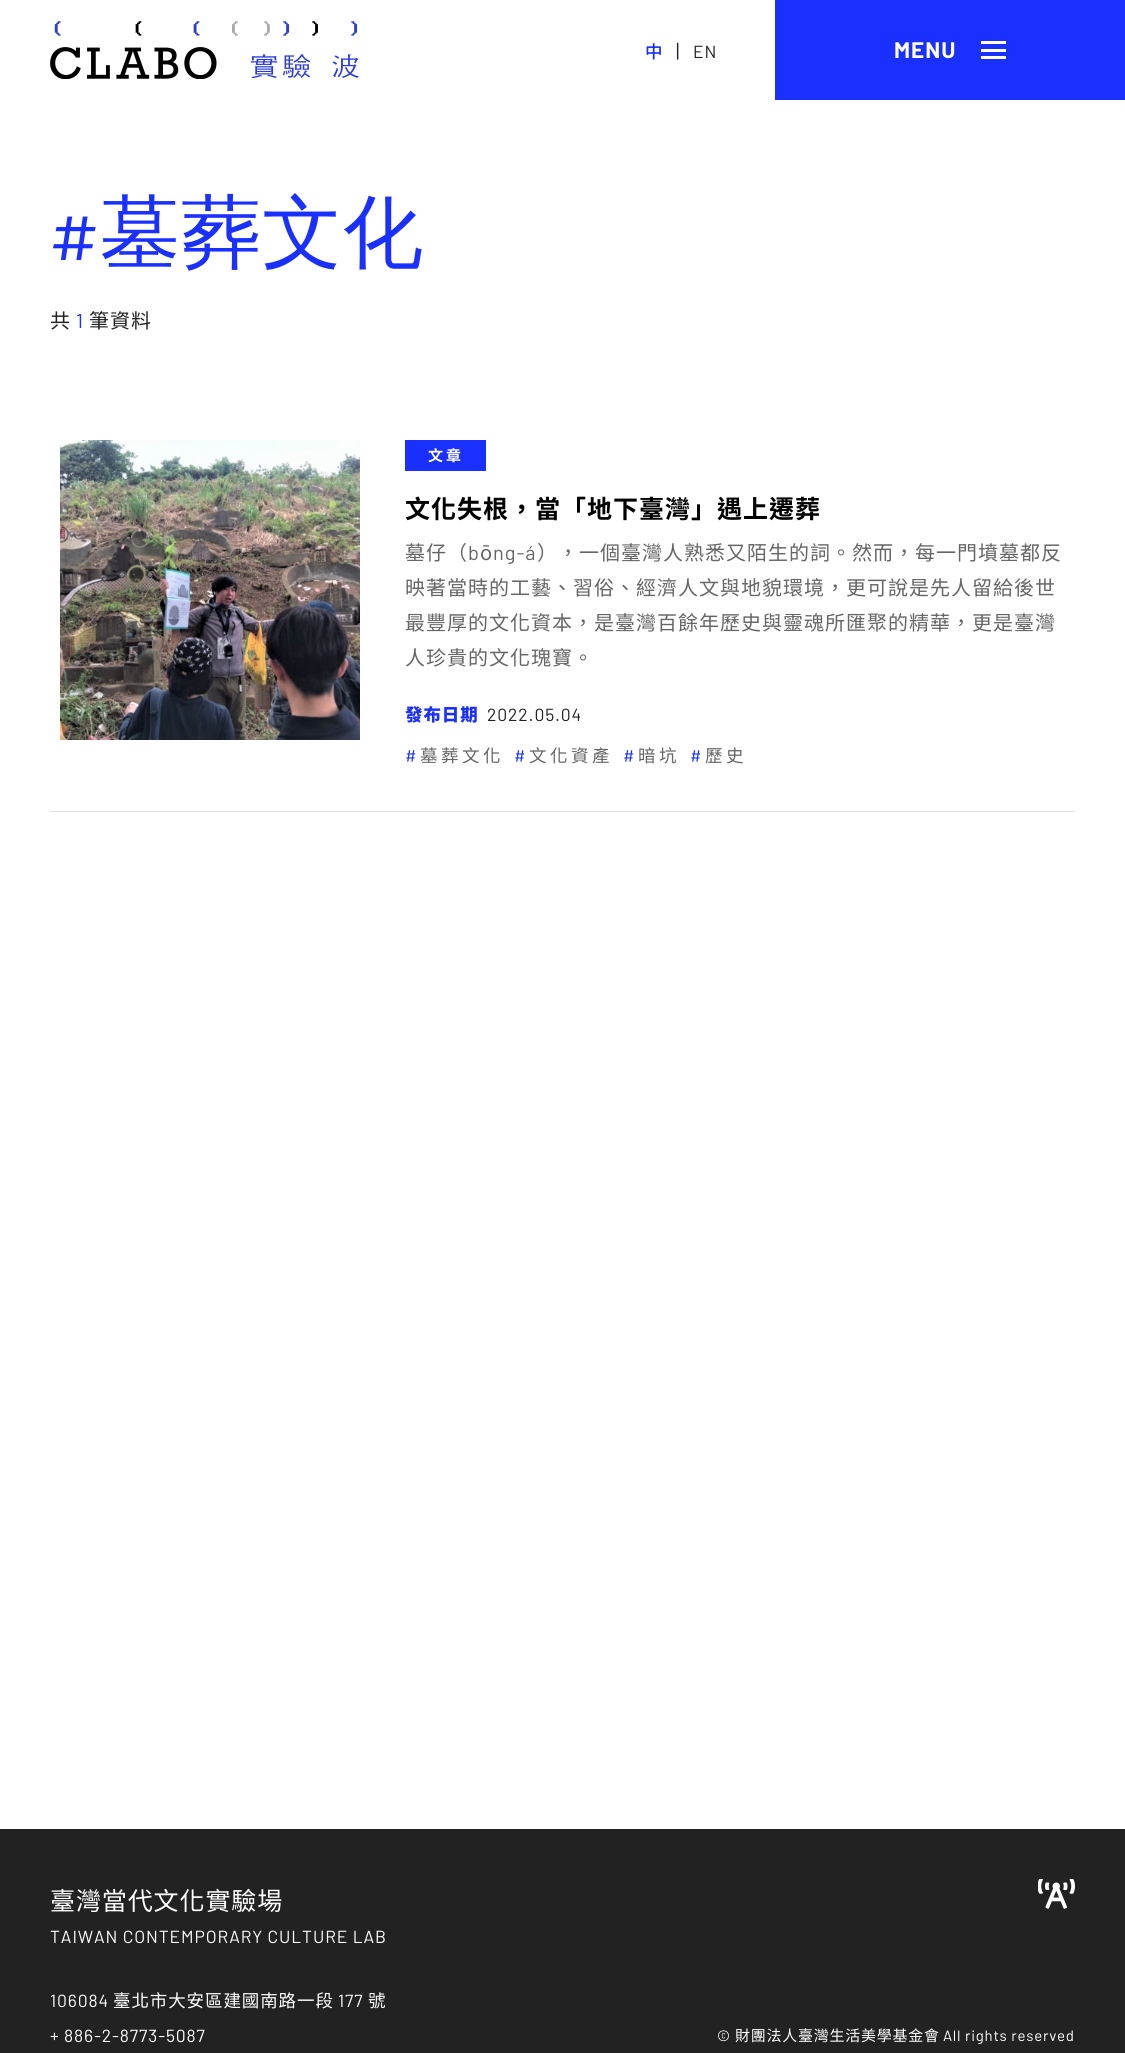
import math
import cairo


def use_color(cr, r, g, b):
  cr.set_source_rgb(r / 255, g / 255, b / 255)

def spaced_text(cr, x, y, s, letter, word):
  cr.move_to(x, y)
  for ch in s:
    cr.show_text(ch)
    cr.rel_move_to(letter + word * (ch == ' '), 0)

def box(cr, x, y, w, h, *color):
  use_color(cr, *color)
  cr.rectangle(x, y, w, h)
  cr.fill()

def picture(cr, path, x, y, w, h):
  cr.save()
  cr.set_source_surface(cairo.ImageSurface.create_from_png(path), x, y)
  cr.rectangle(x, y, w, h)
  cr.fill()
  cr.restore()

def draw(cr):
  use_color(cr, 255, 255, 255)
  cr.paint()
  picture(cr, "img_01.png", 50, 21, 309, 58)
  box(cr, 775, 0, 350, 100, 26, 48, 255)
  box(cr, 981, 49, 25, 3, 255, 255, 255)
  box(cr, 981, 41, 25, 3, 255, 255, 255)
  box(cr, 981, 56, 25, 3, 255, 255, 255)
  box(cr, 50, 811, 1025, 1, 226, 224, 225)
  picture(cr, "img_02.png", 60, 440, 300, 300)
  box(cr, 405, 440, 81, 31, 26, 48, 255)
  box(cr, 0, 1829, 1125, 224, 34, 34, 34)
  picture(cr, "img_03.png", 1038, 1879, 37, 30)
  cr.select_font_face("Noto Sans TC Medium")
  cr.set_font_size(17.5)
  use_color(cr, 26, 48, 255)
  spaced_text(cr, 645, 58, "中", 1, 0)
  cr.select_font_face("Barlow")
  cr.set_font_size(20)
  use_color(cr, 34, 34, 34)
  spaced_text(cr, 676, 58, "|", 1, 0)
  cr.set_font_size(17.5)
  spaced_text(cr, 693, 58, "EN", 1, 0)
  cr.select_font_face("Barlow", cairo.FONT_SLANT_NORMAL, cairo.FONT_WEIGHT_BOLD)
  cr.set_font_size(22.5)
  use_color(cr, 255, 255, 255)
  spaced_text(cr, 894, 58, "MENU", 1, 0)
  cr.select_font_face("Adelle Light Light")
  cr.set_font_size(80)
  use_color(cr, 26, 48, 255)
  spaced_text(cr, 50, 260, "#", 1, 0)
  cr.select_font_face("WenQuanYi Zen Hei Medium")
  spaced_text(cr, 100, 260, "墓葬文化", 1, 0)
  cr.select_font_face("Noto Sans TC")
  cr.set_font_size(20)
  use_color(cr, 34, 34, 34)
  spaced_text(cr, 50, 328, "共", 1, 0)
  cr.select_font_face("Barlow")
  use_color(cr, 26, 48, 255)
  spaced_text(cr, 76, 328, "1", 1, 0)
  cr.select_font_face("Noto Sans TC")
  use_color(cr, 34, 34, 34)
  spaced_text(cr, 89, 328, "筆資料", 1, 0)
  cr.select_font_face("Noto Sans TC", cairo.FONT_SLANT_NORMAL, cairo.FONT_WEIGHT_BOLD)
  cr.set_font_size(15)
  use_color(cr, 255, 255, 255)
  spaced_text(cr, 428, 461, "文章", 3, 0)
  cr.set_font_size(25)
  use_color(cr, 0, 0, 0)
  spaced_text(cr, 405, 518, "文化失根，當「地下臺灣」遇上遷葬", 1, 0)
  cr.select_font_face("Noto Sans TC")
  cr.set_font_size(20)
  use_color(cr, 102, 102, 102)
  spaced_text(cr, 405, 560, "墓仔（", 1, 0)
  cr.select_font_face("Barlow")
  spaced_text(cr, 468, 560, "b", 1, 0)
  cr.select_font_face("Noto Sans TC")
  spaced_text(cr, 480, 560, "ō", 1, 0)
  cr.select_font_face("Barlow")
  spaced_text(cr, 493, 560, "ng-á", 1, 0)
  cr.select_font_face("Noto Sans TC")
  spaced_text(cr, 537, 560, "），一個臺灣人熟悉又陌生的詞。然而，每一門墳墓都反", 1, 0)
  spaced_text(cr, 405, 595, "映著當時的工藝、習俗、經濟人文與地貌環境，更可說是先人留給後世", 1, 0)
  spaced_text(cr, 405, 630, "最豐厚的文化資本，是臺灣百餘年歷史與靈魂所匯聚的精華，更是臺灣", 1, 0)
  spaced_text(cr, 405, 665, "人珍貴的文化瑰寶。", 1, 0)
  cr.select_font_face("Noto Sans TC Black")
  cr.set_font_size(17.5)
  use_color(cr, 26, 48, 255)
  spaced_text(cr, 405, 721, "發布日期", 0.9, 0)
  cr.select_font_face("Barlow")
  use_color(cr, 34, 34, 34)
  spaced_text(cr, 487, 721, "2022.05.04", 0.9, 0)
  use_color(cr, 26, 48, 255)
  spaced_text(cr, 405, 762, "#", 3.5, 0)
  cr.select_font_face("Noto Sans TC")
  use_color(cr, 102, 102, 102)
  spaced_text(cr, 420, 762, "墓葬文化", 3.5, 0)
  cr.select_font_face("Barlow")
  use_color(cr, 26, 48, 255)
  spaced_text(cr, 514, 762, "#", 3.5, 0)
  cr.select_font_face("Noto Sans TC")
  use_color(cr, 102, 102, 102)
  spaced_text(cr, 529, 762, "文化資產", 3.5, 0)
  cr.select_font_face("Barlow")
  use_color(cr, 26, 48, 255)
  spaced_text(cr, 623, 762, "#", 3.5, 0)
  cr.select_font_face("Noto Sans TC")
  use_color(cr, 102, 102, 102)
  spaced_text(cr, 638, 762, "暗坑", 3.5, 0)
  cr.select_font_face("Barlow")
  use_color(cr, 26, 48, 255)
  spaced_text(cr, 690, 762, "#", 3.5, 0)
  cr.select_font_face("Noto Sans TC")
  use_color(cr, 102, 102, 102)
  spaced_text(cr, 705, 762, "歷史", 3.5, 0)
  cr.set_font_size(25)
  use_color(cr, 255, 255, 255)
  spaced_text(cr, 50, 1910, "臺灣當代文化實驗場", 0.9, 0)
  cr.select_font_face("Barlow")
  cr.set_font_size(17.5)
  spaced_text(cr, 50, 1943, "TAIWAN CONTEMPORARY CULTURE LAB", 0.9, 0)
  spaced_text(cr, 50, 2007, "106084", 0.9, 0)
  cr.select_font_face("Noto Sans TC")
  spaced_text(cr, 113, 2007, "臺北市大安區建國南路一段", 0.9, 0)
  cr.select_font_face("Barlow")
  spaced_text(cr, 338, 2007, "177", 0.9, 0)
  cr.select_font_face("Noto Sans TC")
  spaced_text(cr, 368, 2007, "號", 0.9, 0)
  cr.select_font_face("Barlow")
  spaced_text(cr, 50, 2042, "+ 886-2-8773-5087", 0.9, 0)
  cr.set_font_size(15)
  spaced_text(cr, 717, 2041, "©", 0.75, 0)
  cr.select_font_face("Noto Sans TC")
  spaced_text(cr, 735, 2041, "財團法人臺灣生活美學基金會", 0.75, 0)
  cr.select_font_face("Barlow")
  spaced_text(cr, 943, 2041, "All rights reserved", 0.75, 0)


surface = cairo.ImageSurface(cairo.FORMAT_RGB24, 1125, 2053)
cr = cairo.Context(surface)
options = cairo.FontOptions()
options.set_hint_metrics(cairo.HINT_METRICS_OFF)
options.set_hint_style(cairo.HINT_STYLE_NONE)
cr.set_font_options(options)
cr.set_miter_limit(4)
draw(cr)
surface.write_to_png("out.png")
